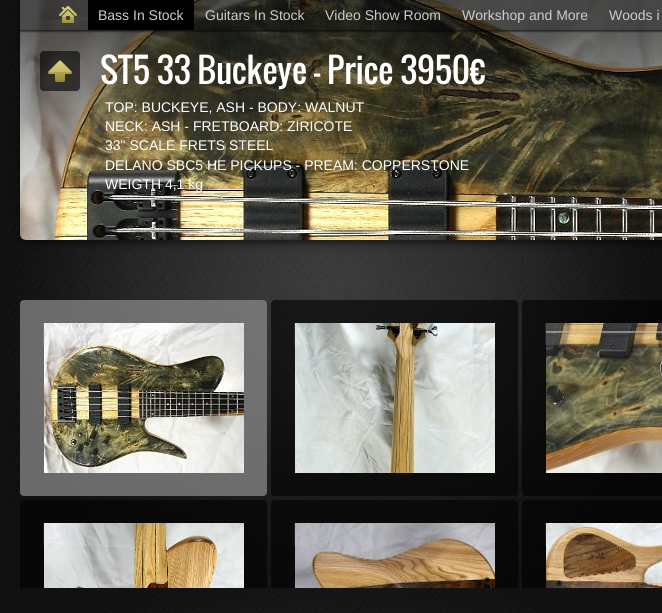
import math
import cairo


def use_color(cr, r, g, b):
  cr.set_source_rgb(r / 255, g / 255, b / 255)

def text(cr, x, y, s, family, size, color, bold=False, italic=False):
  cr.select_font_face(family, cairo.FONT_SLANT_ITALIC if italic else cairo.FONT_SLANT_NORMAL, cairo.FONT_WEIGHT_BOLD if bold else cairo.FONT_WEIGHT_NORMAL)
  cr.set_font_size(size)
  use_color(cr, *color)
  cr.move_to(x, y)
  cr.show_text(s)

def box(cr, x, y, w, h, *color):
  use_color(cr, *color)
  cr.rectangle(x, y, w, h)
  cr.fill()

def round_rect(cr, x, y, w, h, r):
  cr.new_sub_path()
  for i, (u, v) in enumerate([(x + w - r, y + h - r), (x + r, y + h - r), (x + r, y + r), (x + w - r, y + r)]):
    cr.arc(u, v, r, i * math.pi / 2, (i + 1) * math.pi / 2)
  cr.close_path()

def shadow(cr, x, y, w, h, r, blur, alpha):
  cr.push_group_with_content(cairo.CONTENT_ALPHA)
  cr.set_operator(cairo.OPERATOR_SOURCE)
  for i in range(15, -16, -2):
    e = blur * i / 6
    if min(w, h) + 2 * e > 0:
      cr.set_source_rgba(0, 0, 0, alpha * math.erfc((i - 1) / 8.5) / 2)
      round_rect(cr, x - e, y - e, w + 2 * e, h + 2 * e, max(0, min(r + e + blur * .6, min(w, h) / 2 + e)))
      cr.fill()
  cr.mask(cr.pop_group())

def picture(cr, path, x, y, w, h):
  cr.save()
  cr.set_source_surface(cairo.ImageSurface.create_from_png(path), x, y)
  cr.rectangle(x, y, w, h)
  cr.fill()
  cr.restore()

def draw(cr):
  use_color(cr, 17, 17, 17)
  cr.paint()
  picture(cr, "img_01.png", 6, 0, 650, 588)
  use_color(cr, 0, 0, 0)
  shadow(cr, 21, 3, 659, 240, 6, 4, 0.6)
  picture(cr, "img_02.png", 20, 0, 642, 240)
  cr.save()
  cr.set_fill_rule(cairo.FILL_RULE_EVEN_ODD)
  cr.new_path()
  cr.move_to(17, 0)
  cr.line_to(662, 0)
  cr.line_to(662, 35)
  cr.line_to(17, 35)
  cr.close_path()
  cr.move_to(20, 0)
  cr.line_to(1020, 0)
  cr.line_to(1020, 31)
  cr.line_to(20, 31)
  cr.close_path()
  cr.clip()
  shadow(cr, 20, 1, 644, 31, 0, 0.5, 0.4)
  cr.restore()
  cr.set_source_rgba(0, 0, 0, 0.7)
  cr.rectangle(20, 0, 642, 31)
  cr.fill()
  cr.set_source_rgba(0, 0, 0, 0.4)
  cr.rectangle(20, 30, 642, 1)
  cr.fill()
  picture(cr, "img_03.png", 59, 6, 18, 17)
  box(cr, 88, 0, 106, 30, 0, 0, 0)
  gradient = cairo.LinearGradient(520, 31, 520, 208)
  gradient.add_color_stop_rgba(0, 0, 0, 0, 0.6)
  gradient.add_color_stop_rgba(1, 0, 0, 0, 0)
  cr.set_source(gradient)
  cr.rectangle(20, 31, 642, 171)
  cr.fill()
  cr.set_source_rgba(0, 0, 0, 0.6)
  round_rect(cr, 40, 51, 40, 40, 4)
  cr.fill()
  picture(cr, "img_04.png", 48, 60, 24, 22)
  round_rect(cr, 20, 300, 247, 196, 4)
  cr.fill()
  cr.set_source_rgba(1, 1, 1, 0.4)
  round_rect(cr, 20, 300, 247, 196, 4)
  cr.fill()
  picture(cr, "img_05.png", 44, 323, 200, 150)
  cr.set_source_rgba(1, 1, 1, 0.1)
  cr.rectangle(43, 323, 22, 22)
  cr.fill()
  cr.set_source_rgba(0, 0, 0, 0.6)
  round_rect(cr, 271, 300, 247, 196, 4)
  cr.fill()
  picture(cr, "img_06.png", 295, 323, 200, 150)
  cr.set_source_rgba(1, 1, 1, 0.1)
  cr.rectangle(294, 323, 22, 22)
  cr.fill()
  cr.set_source_rgba(0, 0, 0, 0.6)
  cr.new_path()
  cr.move_to(526, 300)
  cr.line_to(662, 300)
  cr.line_to(662, 496)
  cr.line_to(526, 496)
  cr.curve_to(524, 496, 522, 494, 522, 492)
  cr.line_to(522, 304)
  cr.curve_to(522, 302, 524, 300, 526, 300)
  cr.close_path()
  cr.fill()
  picture(cr, "img_07.png", 546, 323, 116, 150)
  cr.set_source_rgba(1, 1, 1, 0.1)
  cr.rectangle(545, 323, 22, 22)
  cr.fill()
  cr.set_source_rgba(0, 0, 0, 0.6)
  cr.new_path()
  cr.move_to(24, 500)
  cr.line_to(263, 500)
  cr.curve_to(265, 500, 267, 502, 267, 504)
  cr.line_to(267, 588)
  cr.line_to(20, 588)
  cr.line_to(20, 504)
  cr.curve_to(20, 502, 22, 500, 24, 500)
  cr.close_path()
  cr.fill()
  picture(cr, "img_08.png", 44, 523, 200, 65)
  cr.set_source_rgba(1, 1, 1, 0.1)
  cr.rectangle(43, 523, 22, 22)
  cr.fill()
  cr.set_source_rgba(0, 0, 0, 0.6)
  cr.new_path()
  cr.move_to(275, 500)
  cr.line_to(514, 500)
  cr.curve_to(516, 500, 518, 502, 518, 504)
  cr.line_to(518, 588)
  cr.line_to(271, 588)
  cr.line_to(271, 504)
  cr.curve_to(271, 502, 273, 500, 275, 500)
  cr.close_path()
  cr.fill()
  picture(cr, "img_09.png", 295, 523, 200, 65)
  cr.set_source_rgba(1, 1, 1, 0.1)
  cr.rectangle(294, 523, 22, 22)
  cr.fill()
  cr.set_source_rgba(0, 0, 0, 0.6)
  cr.new_path()
  cr.move_to(526, 500)
  cr.line_to(662, 500)
  cr.line_to(662, 588)
  cr.line_to(522, 588)
  cr.line_to(522, 504)
  cr.curve_to(522, 502, 524, 500, 526, 500)
  cr.close_path()
  cr.fill()
  picture(cr, "img_10.png", 546, 523, 116, 65)
  cr.set_source_rgba(1, 1, 1, 0.1)
  cr.rectangle(545, 523, 22, 22)
  cr.fill()
  picture(cr, "img_11.png", 70, 588, 482, 25)
  text(cr, 98, 20, "Bass In Stock", "Liberation Sans", 14, (204, 204, 204))
  text(cr, 205, 20, "Guitars In Stock", "Liberation Sans", 14, (204, 204, 204))
  text(cr, 325, 20, "Video Show Room", "Liberation Sans", 14, (204, 204, 204))
  text(cr, 462, 20, "Workshop and More", "Liberation Sans", 14, (204, 204, 204))
  text(cr, 609, 20, "Woods i", "Liberation Sans", 14, (204, 204, 204))
  text(cr, 100, 84, "ST5 33 Buckeye - Price 3950€", "Oswald", 33.6, (255, 255, 255))
  text(cr, 105, 112, "TOP: BUCKEYE, ASH - BODY: WALNUT", "Liberation Sans", 14, (255, 255, 255))
  text(cr, 105, 131, "NECK: ASH - FRETBOARD: ZIRICOTE", "Liberation Sans", 14, (255, 255, 255))
  text(cr, 105, 150, "33\" SCALE FRETS STEEL", "Liberation Sans", 14, (255, 255, 255))
  text(cr, 105, 170, "DELANO SBC5 HE PICKUPS - PREAM: COPPERSTONE", "Liberation Sans", 14, (255, 255, 255))
  text(cr, 105, 189, "WEIGTH 4,1 kg", "Liberation Sans", 14, (255, 255, 255))


surface = cairo.ImageSurface(cairo.FORMAT_RGB24, 662, 613)
cr = cairo.Context(surface)
options = cairo.FontOptions()
options.set_hint_metrics(cairo.HINT_METRICS_OFF)
options.set_hint_style(cairo.HINT_STYLE_NONE)
cr.set_font_options(options)
cr.set_miter_limit(4)
draw(cr)
surface.write_to_png("out.png")
